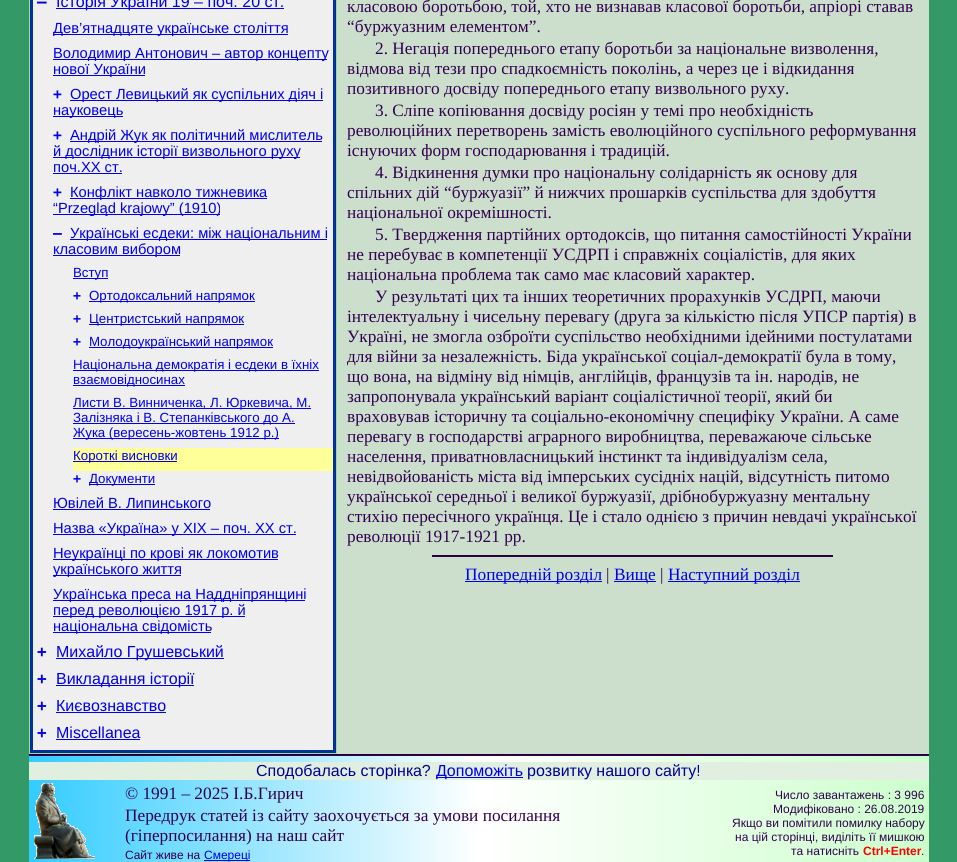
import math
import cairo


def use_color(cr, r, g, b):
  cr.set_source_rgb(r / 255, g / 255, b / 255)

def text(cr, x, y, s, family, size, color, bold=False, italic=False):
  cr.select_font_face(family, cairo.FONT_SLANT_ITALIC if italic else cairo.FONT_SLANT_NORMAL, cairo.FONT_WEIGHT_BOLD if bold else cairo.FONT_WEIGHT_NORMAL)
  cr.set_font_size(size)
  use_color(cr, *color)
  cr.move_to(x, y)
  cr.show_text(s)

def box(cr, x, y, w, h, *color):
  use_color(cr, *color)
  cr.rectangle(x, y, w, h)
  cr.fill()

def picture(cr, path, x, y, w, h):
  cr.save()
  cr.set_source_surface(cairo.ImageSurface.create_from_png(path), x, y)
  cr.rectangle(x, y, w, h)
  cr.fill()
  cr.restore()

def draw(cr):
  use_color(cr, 51, 153, 102)
  cr.paint()
  box(cr, 29, 0, 308, 754, 161, 216, 159)
  use_color(cr, 239, 239, 239)
  cr.rectangle(31.5, -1.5, 303, 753)
  cr.fill_preserve()
  use_color(cr, 0, 51, 153)
  cr.set_line_width(3)
  cr.stroke()
  box(cr, 56, 8, 228, 1, 0, 0, 238)
  box(cr, 53, 34, 235, 1, 0, 0, 238)
  box(cr, 53, 59, 274, 1, 0, 0, 238)
  box(cr, 53, 75, 92, 1, 0, 0, 238)
  box(cr, 70, 100, 253, 1, 0, 0, 238)
  box(cr, 53, 116, 70, 1, 0, 0, 238)
  box(cr, 70, 141, 252, 1, 0, 0, 238)
  box(cr, 53, 157, 247, 1, 0, 0, 238)
  box(cr, 53, 173, 69, 1, 0, 0, 238)
  box(cr, 70, 198, 197, 1, 0, 0, 238)
  box(cr, 53, 214, 167, 1, 0, 0, 238)
  box(cr, 70, 239, 257, 1, 0, 0, 238)
  box(cr, 53, 255, 127, 1, 0, 0, 238)
  box(cr, 73, 278, 35, 1, 0, 0, 238)
  box(cr, 89, 301, 166, 1, 0, 0, 238)
  box(cr, 89, 324, 155, 1, 0, 0, 238)
  box(cr, 89, 347, 184, 1, 0, 0, 238)
  box(cr, 73, 370, 246, 1, 0, 0, 238)
  box(cr, 73, 385, 112, 1, 0, 0, 238)
  box(cr, 73, 408, 238, 1, 0, 0, 238)
  box(cr, 73, 423, 222, 1, 0, 0, 238)
  box(cr, 73, 438, 206, 1, 0, 0, 238)
  box(cr, 73, 448, 260, 23, 255, 255, 153)
  box(cr, 73, 461, 104, 1, 0, 0, 238)
  box(cr, 89, 484, 66, 1, 0, 0, 238)
  box(cr, 53, 509, 157, 1, 0, 0, 238)
  box(cr, 53, 534, 243, 1, 0, 0, 238)
  box(cr, 53, 559, 225, 1, 0, 0, 238)
  box(cr, 53, 575, 128, 1, 0, 0, 238)
  box(cr, 53, 600, 252, 1, 0, 0, 238)
  box(cr, 53, 616, 192, 1, 0, 0, 238)
  box(cr, 53, 632, 158, 1, 0, 0, 238)
  box(cr, 56, 658, 168, 1, 0, 0, 238)
  box(cr, 56, 685, 138, 1, 0, 0, 238)
  box(cr, 56, 712, 110, 1, 0, 0, 238)
  box(cr, 56, 739, 84, 1, 0, 0, 238)
  box(cr, 337, 0, 592, 754, 204, 223, 204)
  box(cr, 432, 556, 401, 1, 51, 0, 80)
  box(cr, 432, 555, 401, 1, 34, 0, 53)
  box(cr, 832, 555, 1, 2, 51, 0, 80)
  box(cr, 432, 555, 1, 2, 34, 0, 53)
  box(cr, 465, 581, 137, 1, 0, 0, 238)
  box(cr, 614, 581, 42, 1, 0, 0, 238)
  box(cr, 668, 581, 132, 1, 0, 0, 238)
  gradient = cairo.LinearGradient(29, 809, 929, 809)
  gradient.add_color_stop_rgba(0, 0.2, 0.8, 1, 1)
  gradient.add_color_stop_rgba(0.5, 1, 1, 1, 1)
  gradient.add_color_stop_rgba(1, 0.8, 1, 0.8, 1)
  cr.set_source(gradient)
  cr.rectangle(29, 756, 900, 106)
  cr.fill()
  box(cr, 29, 755, 900, 1, 51, 0, 80)
  box(cr, 29, 754, 900, 1, 34, 0, 53)
  box(cr, 928, 754, 1, 2, 51, 0, 80)
  box(cr, 29, 754, 1, 2, 34, 0, 53)
  box(cr, 29, 762, 900, 18, 224, 239, 224)
  box(cr, 436, 777, 87, 1, 0, 0, 238)
  picture(cr, "img_01.png", 34, 783, 61, 76)
  box(cr, 204, 860, 46, 1, 0, 0, 238)
  text(cr, 37, 7, "–", "DejaVu Sans Mono", 16, (0, 0, 238), bold=True)
  text(cr, 56, 7, "Історія України 19 – поч. 20 ст.", "Liberation Sans", 16, (0, 0, 238))
  text(cr, 53, 33, "Дев’ятнадцяте українське століття", "Liberation Sans", 14.7, (0, 0, 238))
  text(cr, 53, 58, "Володимир Антонович – автор концепту", "Liberation Sans", 14.7, (0, 0, 238))
  text(cr, 53, 74, "нової України", "Liberation Sans", 14.7, (0, 0, 238))
  text(cr, 53, 99, "+", "DejaVu Sans Mono", 14.7, (0, 0, 238), bold=True)
  text(cr, 70, 99, "Орест Левицький як суспільних діяч і", "Liberation Sans", 14.7, (0, 0, 238))
  text(cr, 53, 115, "науковець", "Liberation Sans", 14.7, (0, 0, 238))
  text(cr, 53, 140, "+", "DejaVu Sans Mono", 14.7, (0, 0, 238), bold=True)
  text(cr, 70, 140, "Андрій Жук як політичний мислитель", "Liberation Sans", 14.7, (0, 0, 238))
  text(cr, 53, 156, "й дослідник історії визвольного руху", "Liberation Sans", 14.7, (0, 0, 238))
  text(cr, 53, 172, "поч.ХХ ст.", "Liberation Sans", 14.7, (0, 0, 238))
  text(cr, 53, 197, "+", "DejaVu Sans Mono", 14.7, (0, 0, 238), bold=True)
  text(cr, 70, 197, "Конфлікт навколо тижневика", "Liberation Sans", 14.7, (0, 0, 238))
  text(cr, 53, 213, "“Przegląd krajowy” (1910)", "Liberation Sans", 14.7, (0, 0, 238))
  text(cr, 53, 238, "–", "DejaVu Sans Mono", 14.7, (0, 0, 238), bold=True)
  text(cr, 70, 238, "Українські есдеки: між національним і", "Liberation Sans", 14.7, (0, 0, 238))
  text(cr, 53, 254, "класовим вибором", "Liberation Sans", 14.7, (0, 0, 238))
  text(cr, 73, 277, "Вступ", "Liberation Sans", 13.3, (0, 0, 238))
  text(cr, 73, 300, "+", "DejaVu Sans Mono", 13.3, (0, 0, 238), bold=True)
  text(cr, 89, 300, "Ортодоксальний напрямок", "Liberation Sans", 13.3, (0, 0, 238))
  text(cr, 73, 323, "+", "DejaVu Sans Mono", 13.3, (0, 0, 238), bold=True)
  text(cr, 89, 323, "Центристський напрямок", "Liberation Sans", 13.3, (0, 0, 238))
  text(cr, 73, 346, "+", "DejaVu Sans Mono", 13.3, (0, 0, 238), bold=True)
  text(cr, 89, 346, "Молодоукраїнський напрямок", "Liberation Sans", 13.3, (0, 0, 238))
  text(cr, 73, 369, "Національна демократія і есдеки в їхніх", "Liberation Sans", 13.3, (0, 0, 238))
  text(cr, 73, 384, "взаємовідносинах", "Liberation Sans", 13.3, (0, 0, 238))
  text(cr, 73, 407, "Листи В. Винниченка, Л. Юркевича, М.", "Liberation Sans", 13.3, (0, 0, 238))
  text(cr, 73, 422, "Залізняка і В. Степанківського до А.", "Liberation Sans", 13.3, (0, 0, 238))
  text(cr, 73, 437, "Жука (вересень-жовтень 1912 р.)", "Liberation Sans", 13.3, (0, 0, 238))
  text(cr, 73, 460, "Короткі висновки", "Liberation Sans", 13.3, (0, 0, 238))
  text(cr, 73, 483, "+", "DejaVu Sans Mono", 13.3, (0, 0, 238), bold=True)
  text(cr, 89, 483, "Документи", "Liberation Sans", 13.3, (0, 0, 238))
  text(cr, 53, 508, "Ювілей В. Липинського", "Liberation Sans", 14.7, (0, 0, 238))
  text(cr, 53, 533, "Назва «Україна» у ХІХ – поч. ХХ ст.", "Liberation Sans", 14.7, (0, 0, 238))
  text(cr, 53, 558, "Неукраїнці по крові як локомотив", "Liberation Sans", 14.7, (0, 0, 238))
  text(cr, 53, 574, "українського життя", "Liberation Sans", 14.7, (0, 0, 238))
  text(cr, 53, 599, "Українська преса на Наддніпрянщині", "Liberation Sans", 14.7, (0, 0, 238))
  text(cr, 53, 615, "перед революцією 1917 р. й", "Liberation Sans", 14.7, (0, 0, 238))
  text(cr, 53, 631, "національна свідомість", "Liberation Sans", 14.7, (0, 0, 238))
  text(cr, 37, 657, "+", "DejaVu Sans Mono", 16, (0, 0, 238), bold=True)
  text(cr, 56, 657, "Михайло Грушевський", "Liberation Sans", 16, (0, 0, 238))
  text(cr, 37, 684, "+", "DejaVu Sans Mono", 16, (0, 0, 238), bold=True)
  text(cr, 56, 684, "Викладання історії", "Liberation Sans", 16, (0, 0, 238))
  text(cr, 37, 711, "+", "DejaVu Sans Mono", 16, (0, 0, 238), bold=True)
  text(cr, 56, 711, "Києвознавство", "Liberation Sans", 16, (0, 0, 238))
  text(cr, 37, 738, "+", "DejaVu Sans Mono", 16, (0, 0, 238), bold=True)
  text(cr, 56, 738, "Miscellanea", "Liberation Sans", 16, (0, 0, 238))
  text(cr, 347, 12, "класовою боротьбою, той, хто не визнавав класової боротьби, апріорі ставав", "Liberation Serif", 17.3, (51, 0, 80))
  text(cr, 347, 32, "“буржуазним елементом”.", "Liberation Serif", 17.3, (51, 0, 80))
  text(cr, 375, 54, "2. Негація попереднього етапу боротьби за національне визволення,", "Liberation Serif", 17.3, (51, 0, 80))
  text(cr, 347, 74, "відмова від тези про спадкоємність поколінь, а через це і відкидання", "Liberation Serif", 17.3, (51, 0, 80))
  text(cr, 347, 94, "позитивного досвіду попереднього етапу визвольного руху.", "Liberation Serif", 17.3, (51, 0, 80))
  text(cr, 375, 116, "3. Сліпе копіювання досвіду росіян у темі про необхідність", "Liberation Serif", 17.3, (51, 0, 80))
  text(cr, 347, 136, "революційних перетворень замість еволюційного суспільного реформування", "Liberation Serif", 17.3, (51, 0, 80))
  text(cr, 347, 156, "існуючих форм господарювання і традицій.", "Liberation Serif", 17.3, (51, 0, 80))
  text(cr, 375, 178, "4. Відкинення думки про національну солідарність як основу для", "Liberation Serif", 17.3, (51, 0, 80))
  text(cr, 347, 198, "спільних дій “буржуазії” й нижчих прошарків суспільства для здобуття", "Liberation Serif", 17.3, (51, 0, 80))
  text(cr, 347, 218, "національної окремішності.", "Liberation Serif", 17.3, (51, 0, 80))
  text(cr, 375, 240, "5. Твердження партійних ортодоксів, що питання самостійності України", "Liberation Serif", 17.3, (51, 0, 80))
  text(cr, 347, 260, "не перебуває в компетенції УСДРП і справжніх соціалістів, для яких", "Liberation Serif", 17.3, (51, 0, 80))
  text(cr, 347, 280, "національна проблема так само має класовий характер.", "Liberation Serif", 17.3, (51, 0, 80))
  text(cr, 375, 302, "У результаті цих та інших теоретичних прорахунків УСДРП, маючи", "Liberation Serif", 17.3, (51, 0, 80))
  text(cr, 347, 322, "інтелектуальну і чисельну перевагу (друга за кількістю після УПСР партія) в", "Liberation Serif", 17.3, (51, 0, 80))
  text(cr, 347, 342, "Україні, не змогла озброїти суспільство необхідними ідейними постулатами", "Liberation Serif", 17.3, (51, 0, 80))
  text(cr, 347, 362, "для війни за незалежність. Біда української соціал-демократії була в тому,", "Liberation Serif", 17.3, (51, 0, 80))
  text(cr, 347, 382, "що вона, на відміну від німців, англійців, французів та ін. народів, не", "Liberation Serif", 17.3, (51, 0, 80))
  text(cr, 347, 402, "запропонувала український варіант соціалістичної теорії, який би", "Liberation Serif", 17.3, (51, 0, 80))
  text(cr, 347, 422, "враховував історичну та соціально-економічну специфіку України. А саме", "Liberation Serif", 17.3, (51, 0, 80))
  text(cr, 347, 442, "перевагу в господарстві аграрного виробництва, переважаюче сільське", "Liberation Serif", 17.3, (51, 0, 80))
  text(cr, 347, 462, "населення, приватновласницький інстинкт та індивідуалізм села,", "Liberation Serif", 17.3, (51, 0, 80))
  text(cr, 347, 482, "невідвойованість міста від імперських сусідніх націй, відсутність питомо", "Liberation Serif", 17.3, (51, 0, 80))
  text(cr, 347, 502, "української середньої і великої буржуазії, дрібнобуржуазну ментальну", "Liberation Serif", 17.3, (51, 0, 80))
  text(cr, 347, 522, "стихію пересічного українця. Це і стало однією з причин невдачі української", "Liberation Serif", 17.3, (51, 0, 80))
  text(cr, 347, 542, "революції 1917-1921 рр.", "Liberation Serif", 17.3, (51, 0, 80))
  text(cr, 465, 580, "Попередній розділ", "Liberation Serif", 17.3, (0, 0, 238))
  text(cr, 606, 580, "|", "Liberation Serif", 17.3, (51, 0, 80))
  text(cr, 614, 580, "Вище", "Liberation Serif", 17.3, (0, 0, 238))
  text(cr, 660, 580, "|", "Liberation Serif", 17.3, (51, 0, 80))
  text(cr, 668, 580, "Наступний розділ", "Liberation Serif", 17.3, (0, 0, 238))
  text(cr, 256, 776, "Сподобалась сторінка?", "Liberation Sans", 16, (0, 0, 153))
  text(cr, 436, 776, "Допоможіть", "Liberation Sans", 16, (0, 0, 238))
  text(cr, 527, 776, "розвитку нашого сайту!", "Liberation Sans", 16, (0, 0, 153))
  text(cr, 125, 799, "© 1991 – 2025 І.Б.Гирич", "Liberation Serif", 17.3, (51, 0, 80))
  text(cr, 125, 821, "Передрук статей із сайту заохочується за умови посилання", "Liberation Serif", 17.3, (51, 0, 80))
  text(cr, 125, 841, "(гіперпосилання) на наш сайт", "Liberation Serif", 17.3, (51, 0, 80))
  text(cr, 125, 859, "Сайт живе на", "Liberation Sans", 12, (51, 0, 80))
  text(cr, 204, 859, "Смереці", "Liberation Sans", 12, (0, 0, 238))
  text(cr, 775, 799, "Число завантажень : 3 996", "Liberation Sans", 12, (51, 0, 80))
  text(cr, 773, 813, "Модифіковано : 26.08.2019", "Liberation Sans", 12, (51, 0, 80))
  text(cr, 732, 827, "Якщо ви помітили помилку набору", "Liberation Sans", 12, (51, 0, 80))
  text(cr, 735, 841, "на цiй сторiнцi, видiлiть її мишкою", "Liberation Sans", 12, (51, 0, 80))
  text(cr, 791, 855, "та натисніть", "Liberation Sans", 12, (51, 0, 80))
  text(cr, 863, 855, "Ctrl+Enter", "Liberation Sans", 12, (255, 0, 0), bold=True)
  text(cr, 921, 855, ".", "Liberation Sans", 12, (51, 0, 80))


surface = cairo.ImageSurface(cairo.FORMAT_RGB24, 957, 862)
cr = cairo.Context(surface)
options = cairo.FontOptions()
options.set_hint_metrics(cairo.HINT_METRICS_OFF)
options.set_hint_style(cairo.HINT_STYLE_NONE)
cr.set_font_options(options)
cr.set_miter_limit(4)
draw(cr)
surface.write_to_png("out.png")
